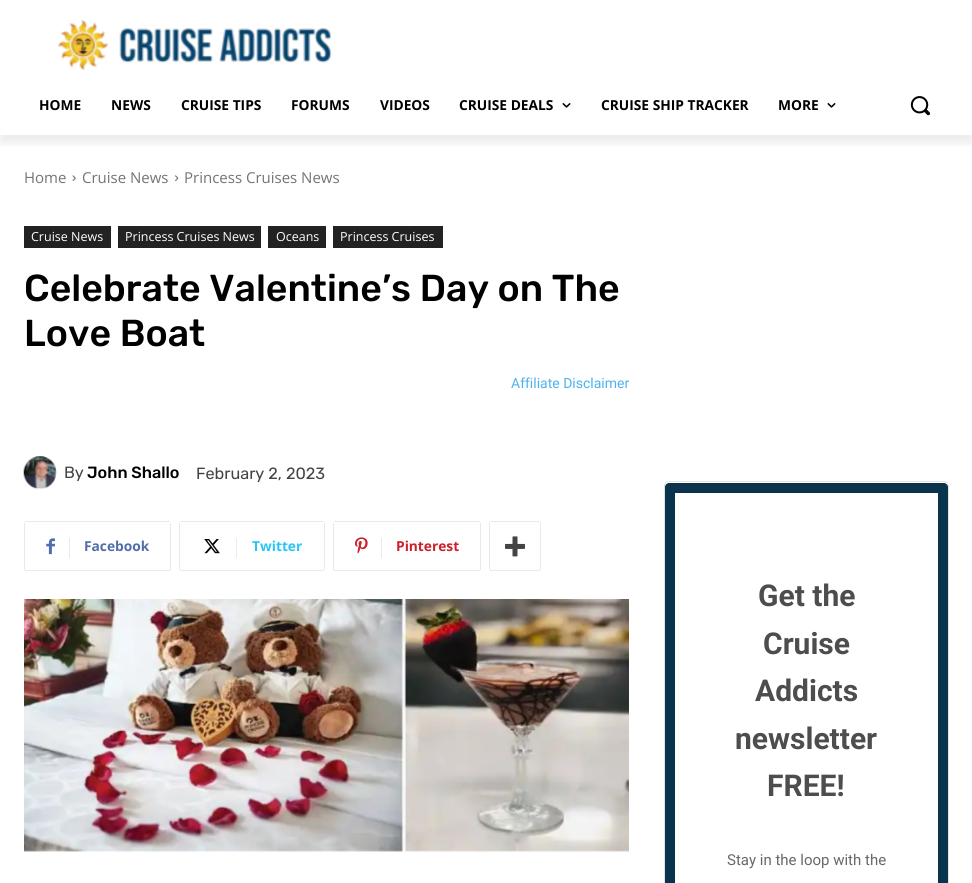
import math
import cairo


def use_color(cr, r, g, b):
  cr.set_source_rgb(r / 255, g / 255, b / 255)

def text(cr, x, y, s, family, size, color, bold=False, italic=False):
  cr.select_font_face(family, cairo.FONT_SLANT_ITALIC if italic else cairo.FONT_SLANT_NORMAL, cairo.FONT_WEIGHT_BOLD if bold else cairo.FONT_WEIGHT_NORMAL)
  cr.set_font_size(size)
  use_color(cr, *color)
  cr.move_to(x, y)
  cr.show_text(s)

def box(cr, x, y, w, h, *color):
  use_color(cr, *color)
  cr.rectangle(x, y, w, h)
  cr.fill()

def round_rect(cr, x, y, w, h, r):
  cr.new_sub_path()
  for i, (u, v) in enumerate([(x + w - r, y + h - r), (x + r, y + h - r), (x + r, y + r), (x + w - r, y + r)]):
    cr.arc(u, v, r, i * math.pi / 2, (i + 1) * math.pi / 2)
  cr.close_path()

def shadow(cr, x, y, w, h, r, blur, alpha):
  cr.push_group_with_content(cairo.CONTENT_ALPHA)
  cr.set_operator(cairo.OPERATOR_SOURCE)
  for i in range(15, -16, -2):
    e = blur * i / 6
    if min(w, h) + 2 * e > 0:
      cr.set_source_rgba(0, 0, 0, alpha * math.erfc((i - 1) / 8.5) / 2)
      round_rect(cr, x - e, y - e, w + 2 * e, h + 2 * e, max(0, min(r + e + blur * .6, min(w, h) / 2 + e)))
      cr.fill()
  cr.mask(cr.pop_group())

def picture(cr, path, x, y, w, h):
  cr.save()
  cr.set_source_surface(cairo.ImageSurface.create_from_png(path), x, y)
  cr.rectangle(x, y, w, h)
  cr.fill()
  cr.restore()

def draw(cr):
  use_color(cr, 255, 255, 255)
  cr.paint()
  picture(cr, "img_01.png", 58, 19, 274, 52)
  cr.save()
  cr.rectangle(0, 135, 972, 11)
  cr.clip()
  use_color(cr, 0, 0, 0)
  shadow(cr, 0, 8, 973, 135, 0, 5, 0.08)
  cr.restore()
  picture(cr, "img_02.png", 562, 103, 9, 5)
  picture(cr, "img_02.png", 827, 103, 9, 5)
  picture(cr, "img_03.png", 910, 96, 20, 20)
  picture(cr, "img_04.png", 72, 175, 4, 6)
  picture(cr, "img_05.png", 175, 175, 4, 7)
  box(cr, 24, 226, 87, 22, 34, 34, 34)
  box(cr, 118, 226, 143, 22, 34, 34, 34)
  box(cr, 268, 226, 58, 22, 34, 34, 34)
  box(cr, 333, 226, 110, 22, 34, 34, 34)
  picture(cr, "img_06.png", 23, 456, 34, 34)
  box(cr, 24, 523, 1, 47, 233, 233, 233)
  picture(cr, "img_07.png", 46, 538, 9, 17)
  box(cr, 25, 521, 145, 1, 233, 233, 233)
  box(cr, 170, 523, 1, 47, 233, 233, 233)
  box(cr, 25, 570, 145, 1, 233, 233, 233)
  box(cr, 69, 538, 1, 20, 235, 235, 235)
  box(cr, 179, 523, 1, 47, 233, 233, 233)
  picture(cr, "img_08.png", 204, 539, 16, 15)
  box(cr, 180, 521, 144, 1, 233, 233, 233)
  box(cr, 324, 523, 1, 47, 233, 233, 233)
  box(cr, 180, 570, 144, 1, 233, 233, 233)
  box(cr, 236, 538, 1, 20, 235, 235, 235)
  box(cr, 333, 523, 1, 47, 233, 233, 233)
  picture(cr, "img_09.png", 355, 537, 13, 17)
  box(cr, 334, 521, 146, 1, 233, 233, 233)
  box(cr, 480, 523, 1, 47, 233, 233, 233)
  box(cr, 334, 570, 146, 1, 233, 233, 233)
  box(cr, 381, 538, 1, 20, 235, 235, 235)
  round_rect(cr, 489.5, 521.5, 51, 49, 2)
  use_color(cr, 233, 233, 233)
  cr.set_line_width(1)
  cr.stroke()
  picture(cr, "img_10.png", 505, 536, 20, 21)
  picture(cr, "img_11.png", 24, 599, 605, 253)
  round_rect(cr, 664.5, 481.5, 284, 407, 4.5)
  use_color(cr, 227, 227, 227)
  cr.stroke()
  use_color(cr, 10, 51, 78)
  cr.set_fill_rule(cairo.FILL_RULE_EVEN_ODD)
  cr.new_path()
  cr.move_to(669, 483)
  cr.curve_to(667, 483, 665, 485, 665, 487)
  cr.line_to(665, 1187)
  cr.curve_to(665, 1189, 667, 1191, 669, 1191)
  cr.line_to(944, 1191)
  cr.curve_to(946, 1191, 948, 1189, 948, 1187)
  cr.line_to(948, 487)
  cr.curve_to(948, 485, 946, 483, 944, 483)
  cr.close_path()
  cr.move_to(675, 493)
  cr.line_to(675, 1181)
  cr.line_to(938, 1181)
  cr.line_to(938, 493)
  cr.close_path()
  cr.fill()
  text(cr, 39, 110, "HOME", "Open Sans", 13.75, (0, 0, 0), bold=True)
  text(cr, 111, 110, "NEWS", "Open Sans", 13.75, (0, 0, 0), bold=True)
  text(cr, 181, 110, "CRUISE TIPS", "Open Sans", 13.75, (0, 0, 0), bold=True)
  text(cr, 291, 110, "FORUMS", "Open Sans", 13.75, (0, 0, 0), bold=True)
  text(cr, 380, 110, "VIDEOS", "Open Sans", 13.75, (0, 0, 0), bold=True)
  text(cr, 459, 110, "CRUISE DEALS", "Open Sans", 13.75, (0, 0, 0), bold=True)
  text(cr, 601, 110, "CRUISE SHIP TRACKER", "Open Sans", 13.75, (0, 0, 0), bold=True)
  text(cr, 778, 110, "MORE", "Open Sans", 13.75, (0, 0, 0), bold=True)
  text(cr, 24, 183, "Home", "Open Sans", 15, (116, 116, 116))
  text(cr, 82, 183, "Cruise News", "Open Sans", 15, (116, 116, 116))
  text(cr, 184, 183, "Princess Cruises News", "Open Sans", 15, (116, 116, 116))
  text(cr, 31, 241, "Cruise News", "Open Sans", 12.5, (255, 255, 255))
  text(cr, 125, 241, "Princess Cruises News", "Open Sans", 12.5, (255, 255, 255))
  text(cr, 276, 241, "Oceans", "Open Sans", 12.5, (255, 255, 255))
  text(cr, 340, 241, "Princess Cruises", "Open Sans", 12.5, (255, 255, 255))
  text(cr, 24, 301, "Celebrate Valentine’s Day on The", "Rubik Medium", 37.5, (0, 0, 0))
  text(cr, 24, 346, "Love Boat", "Rubik Medium", 37.5, (0, 0, 0))
  text(cr, 511, 388, "Affiliate Disclaimer", "Roboto", 14, (77, 178, 236))
  text(cr, 64, 478, "By", "Rubik", 16.25, (68, 68, 68))
  text(cr, 87, 478, "John Shallo", "Rubik Medium", 16.25, (0, 0, 0))
  text(cr, 196, 479, "February 2, 2023", "Rubik", 16.25, (68, 68, 68))
  text(cr, 84, 551, "Facebook", "Open Sans", 13.75, (81, 110, 171), bold=True)
  text(cr, 252, 551, "Twitter", "Open Sans", 13.75, (41, 197, 246), bold=True)
  text(cr, 396, 551, "Pinterest", "Open Sans", 13.75, (202, 33, 42), bold=True)
  text(cr, 758, 606, "Get the", "Roboto", 30, (77, 77, 77), bold=True)
  text(cr, 763, 654, "Cruise", "Roboto", 30, (77, 77, 77), bold=True)
  text(cr, 755, 701, "Addicts", "Roboto", 30, (77, 77, 77), bold=True)
  text(cr, 735, 749, "newsletter", "Roboto", 30, (77, 77, 77), bold=True)
  text(cr, 767, 796, "FREE!", "Roboto", 30, (77, 77, 77), bold=True)
  text(cr, 727, 865, "Stay in the loop with the", "Roboto", 15, (104, 104, 104))


surface = cairo.ImageSurface(cairo.FORMAT_RGB24, 972, 883)
cr = cairo.Context(surface)
options = cairo.FontOptions()
options.set_hint_metrics(cairo.HINT_METRICS_OFF)
options.set_hint_style(cairo.HINT_STYLE_NONE)
cr.set_font_options(options)
cr.set_miter_limit(4)
draw(cr)
surface.write_to_png("out.png")
